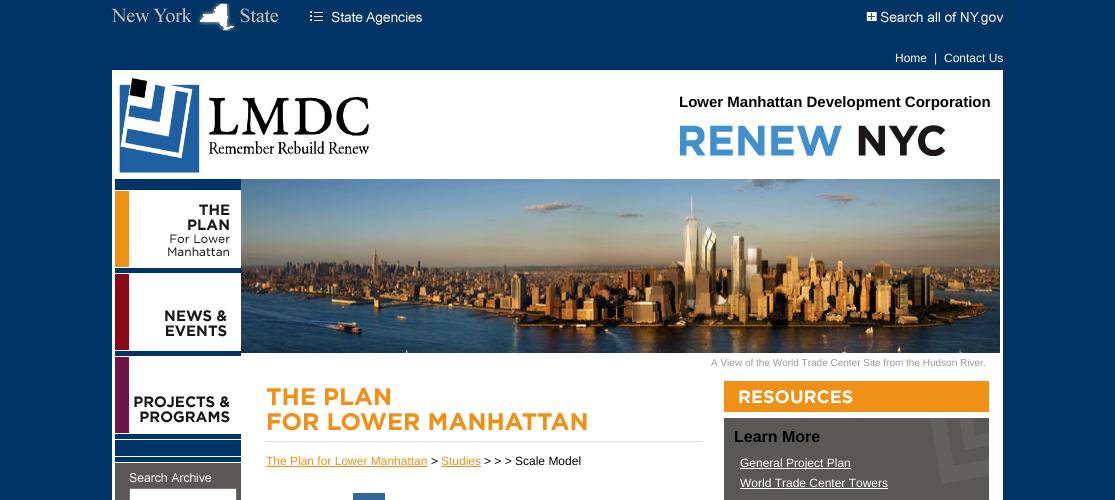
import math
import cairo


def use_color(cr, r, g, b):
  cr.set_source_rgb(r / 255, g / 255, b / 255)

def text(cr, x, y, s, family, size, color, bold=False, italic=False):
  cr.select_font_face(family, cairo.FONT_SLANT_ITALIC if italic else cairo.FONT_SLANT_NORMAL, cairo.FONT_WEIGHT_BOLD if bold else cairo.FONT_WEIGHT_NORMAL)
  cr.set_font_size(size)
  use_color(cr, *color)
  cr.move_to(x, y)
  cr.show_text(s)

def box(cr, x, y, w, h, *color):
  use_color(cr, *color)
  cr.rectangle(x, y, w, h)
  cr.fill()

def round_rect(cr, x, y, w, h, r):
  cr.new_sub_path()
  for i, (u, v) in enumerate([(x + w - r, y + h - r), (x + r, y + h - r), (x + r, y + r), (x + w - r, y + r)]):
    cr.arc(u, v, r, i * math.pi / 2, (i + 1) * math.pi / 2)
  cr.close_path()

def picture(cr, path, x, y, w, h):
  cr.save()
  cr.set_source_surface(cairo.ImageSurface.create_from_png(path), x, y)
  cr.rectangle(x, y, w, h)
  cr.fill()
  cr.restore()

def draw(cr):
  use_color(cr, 0, 51, 102)
  cr.paint()
  picture(cr, "img_01.png", 96, 3, 183, 28)
  picture(cr, "img_02.png", 307, 10, 117, 16)
  picture(cr, "img_03.png", 862, 3, 157, 28)
  box(cr, 115, 73, 885, 427, 255, 255, 255)
  box(cr, 112, 70, 891, 3, 255, 255, 255)
  box(cr, 1000, 70, 3, 430, 255, 255, 255)
  box(cr, 112, 70, 3, 430, 255, 255, 255)
  picture(cr, "img_04.png", 115, 78, 256, 99)
  picture(cr, "img_05.png", 680, 125, 266, 31)
  box(cr, 115, 179, 126, 283, 0, 51, 102)
  box(cr, 115, 190, 126, 1, 255, 255, 255)
  box(cr, 115, 267, 126, 1, 255, 255, 255)
  picture(cr, "img_06.png", 115, 191, 126, 76)
  box(cr, 115, 273, 126, 1, 255, 255, 255)
  box(cr, 115, 350, 126, 1, 255, 255, 255)
  picture(cr, "img_07.png", 115, 274, 126, 76)
  box(cr, 115, 356, 126, 1, 255, 255, 255)
  box(cr, 115, 433, 126, 1, 255, 255, 255)
  picture(cr, "img_08.png", 115, 357, 126, 76)
  box(cr, 115, 439, 126, 1, 255, 255, 255)
  box(cr, 115, 456, 126, 1, 255, 255, 255)
  box(cr, 115, 463, 126, 37, 91, 87, 86)
  picture(cr, "img_09.png", 129, 473, 82, 10)
  use_color(cr, 255, 255, 255)
  round_rect(cr, 129.5, 488.5, 107, 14, 1.5)
  cr.fill_preserve()
  use_color(cr, 118, 118, 118)
  cr.set_line_width(1)
  cr.stroke()
  picture(cr, "img_10.png", 241, 179, 759, 174)
  box(cr, 266, 441, 436, 1, 224, 224, 224)
  picture(cr, "img_11.png", 267, 388, 320, 43)
  box(cr, 266, 466, 161, 1, 239, 144, 23)
  box(cr, 441, 466, 40, 1, 239, 144, 23)
  box(cr, 353, 493, 32, 7, 51, 102, 153)
  box(cr, 724, 381, 265, 31, 239, 144, 23)
  picture(cr, "img_12.png", 739, 390, 114, 14)
  box(cr, 724, 418, 265, 82, 91, 87, 86)
  picture(cr, "img_13.png", 930, 418, 59, 66)
  box(cr, 740, 468, 111, 1, 255, 255, 255)
  box(cr, 740, 488, 148, 1, 255, 255, 255)
  text(cr, 895, 62, "Home", "Liberation Sans", 12, (255, 255, 255))
  text(cr, 934, 62, "|", "Liberation Sans", 12, (255, 255, 255))
  text(cr, 944, 62, "Contact Us", "Liberation Sans", 12, (255, 255, 255))
  text(cr, 679, 107, "Lower Manhattan Development Corporation", "Liberation Sans", 15, (0, 0, 0), bold=True)
  text(cr, 711, 366, "A View of the World Trade Center Site from the Hudson River.", "Liberation Sans", 10, (153, 153, 153))
  text(cr, 266, 465, "The Plan for Lower Manhattan", "Liberation Sans", 12, (239, 144, 23))
  text(cr, 431, 465, ">", "Liberation Sans", 12, (0, 0, 0))
  text(cr, 441, 465, "Studies", "Liberation Sans", 12, (239, 144, 23))
  text(cr, 484, 465, "> > > Scale Model", "Liberation Sans", 12, (0, 0, 0))
  text(cr, 734, 442, "Learn More", "Liberation Sans", 16, (0, 0, 0), bold=True)
  text(cr, 740, 467, "General Project Plan", "Liberation Sans", 12, (255, 255, 255))
  text(cr, 740, 487, "World Trade Center Towers", "Liberation Sans", 12, (255, 255, 255))


surface = cairo.ImageSurface(cairo.FORMAT_RGB24, 1115, 500)
cr = cairo.Context(surface)
options = cairo.FontOptions()
options.set_hint_metrics(cairo.HINT_METRICS_OFF)
options.set_hint_style(cairo.HINT_STYLE_NONE)
cr.set_font_options(options)
cr.set_miter_limit(4)
draw(cr)
surface.write_to_png("out.png")
